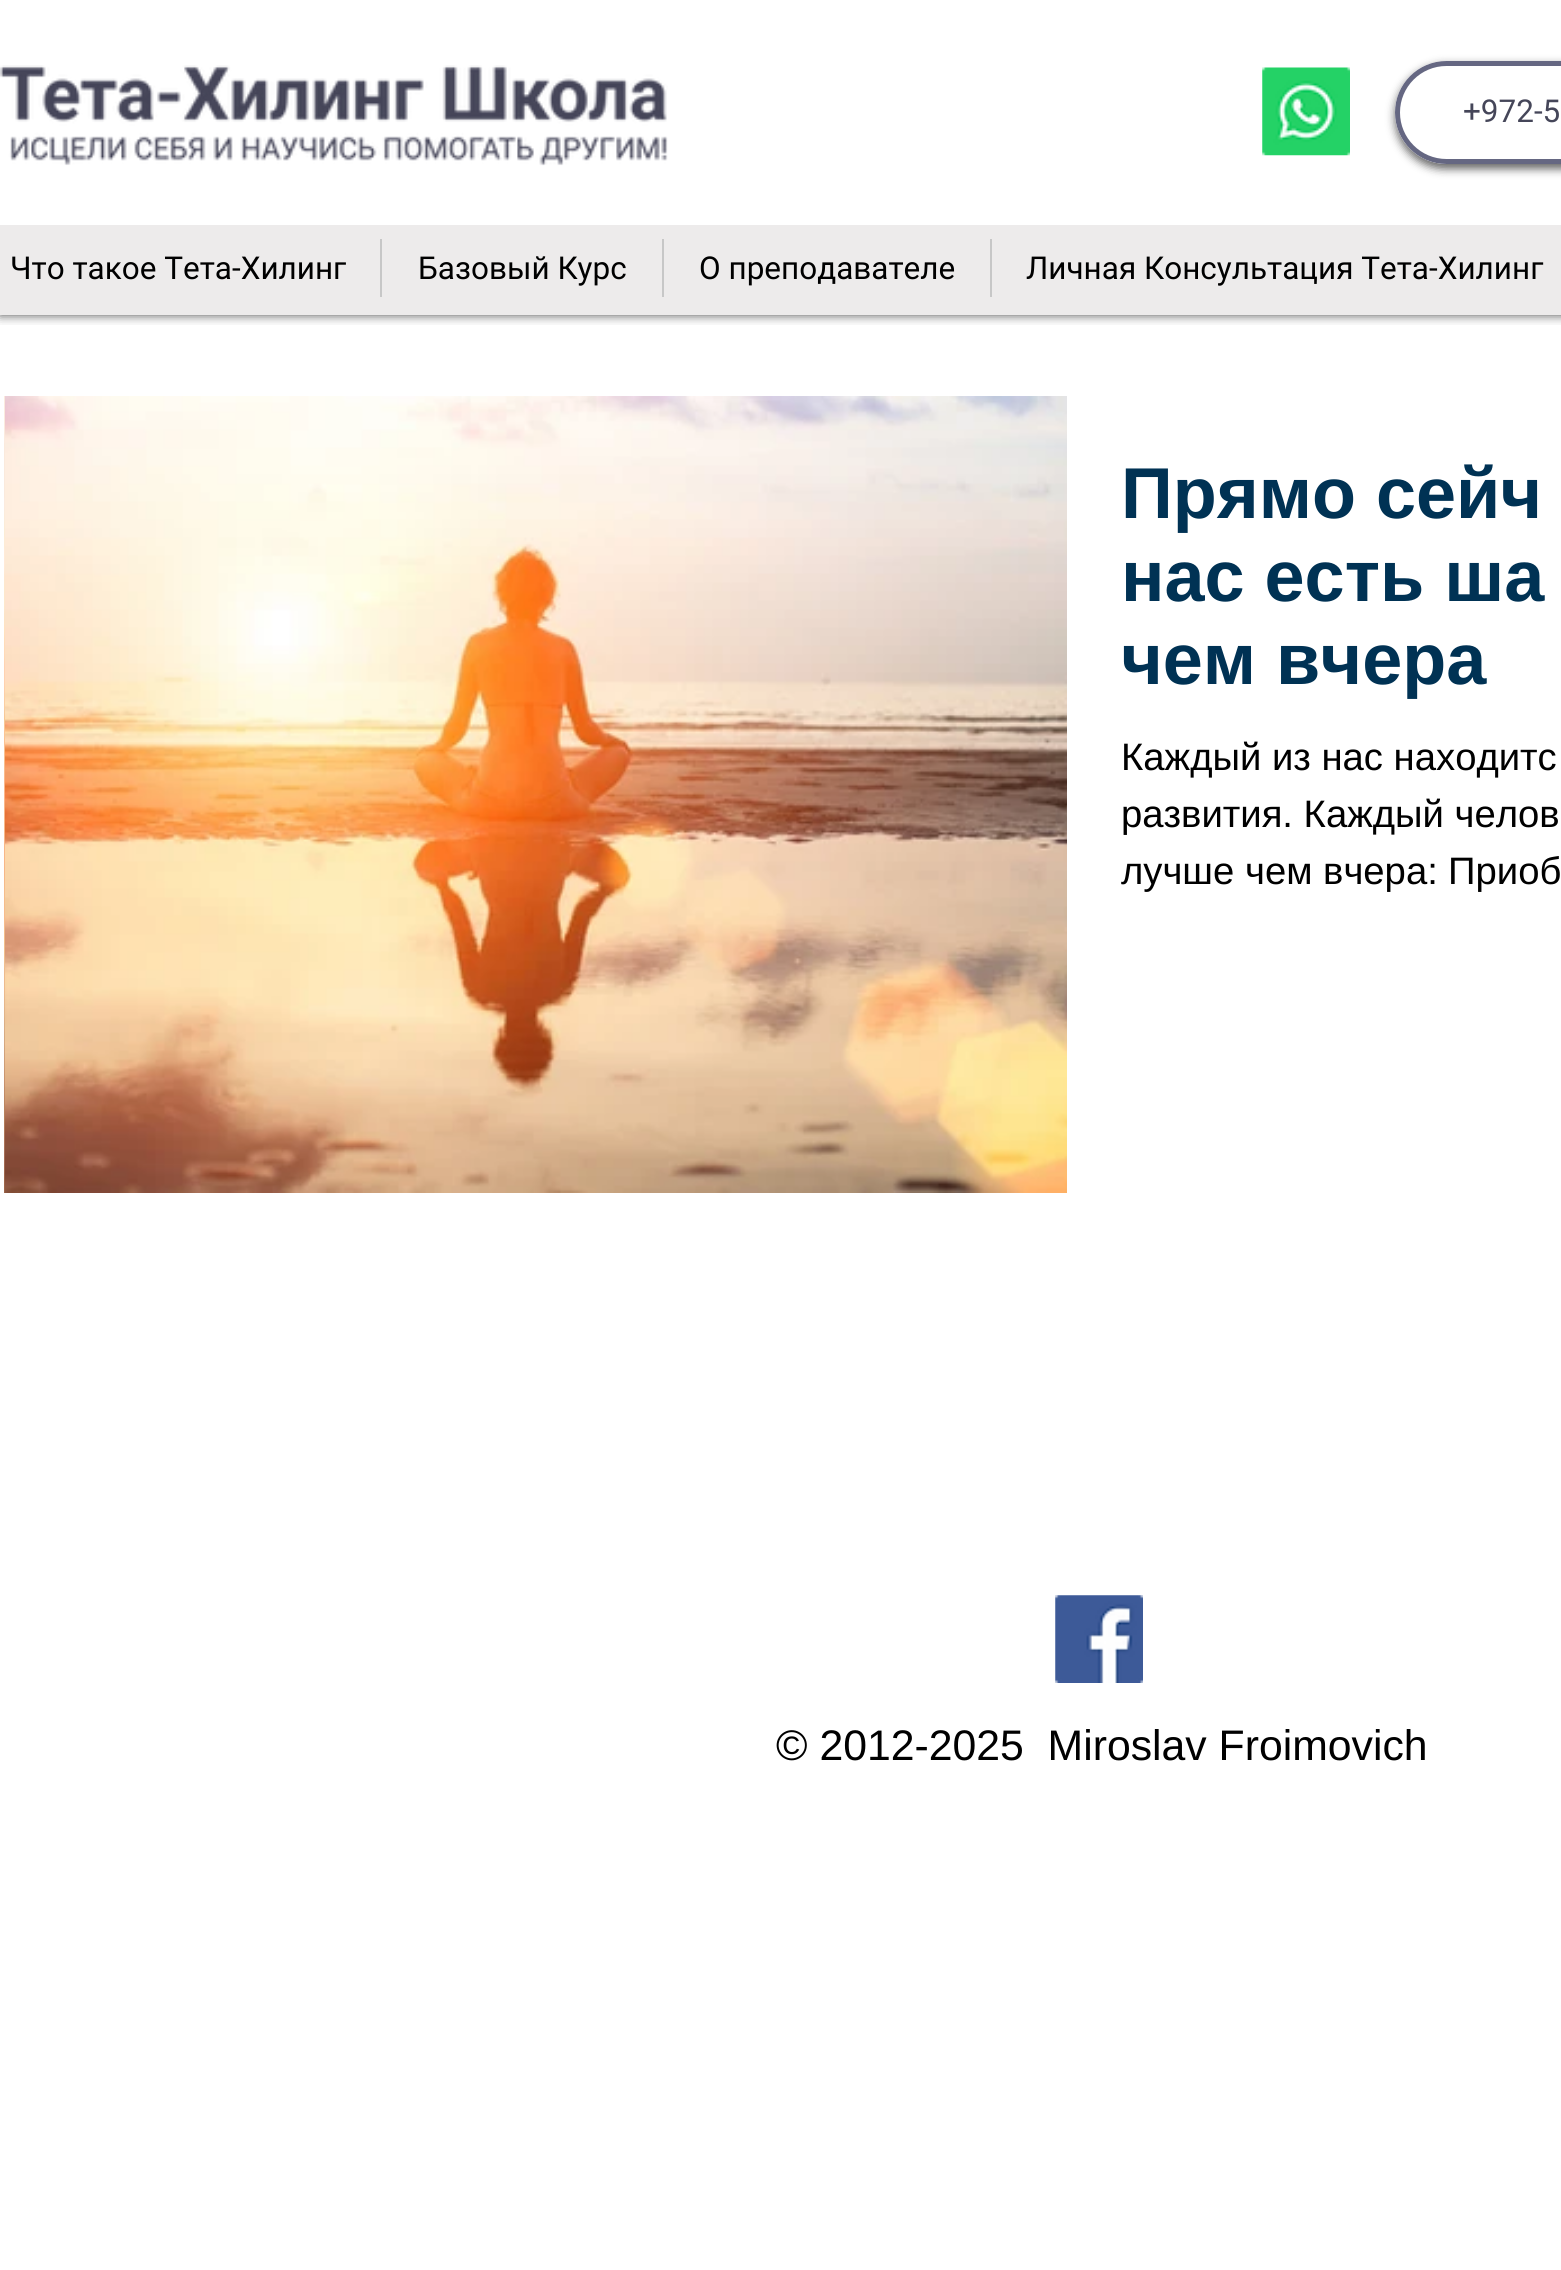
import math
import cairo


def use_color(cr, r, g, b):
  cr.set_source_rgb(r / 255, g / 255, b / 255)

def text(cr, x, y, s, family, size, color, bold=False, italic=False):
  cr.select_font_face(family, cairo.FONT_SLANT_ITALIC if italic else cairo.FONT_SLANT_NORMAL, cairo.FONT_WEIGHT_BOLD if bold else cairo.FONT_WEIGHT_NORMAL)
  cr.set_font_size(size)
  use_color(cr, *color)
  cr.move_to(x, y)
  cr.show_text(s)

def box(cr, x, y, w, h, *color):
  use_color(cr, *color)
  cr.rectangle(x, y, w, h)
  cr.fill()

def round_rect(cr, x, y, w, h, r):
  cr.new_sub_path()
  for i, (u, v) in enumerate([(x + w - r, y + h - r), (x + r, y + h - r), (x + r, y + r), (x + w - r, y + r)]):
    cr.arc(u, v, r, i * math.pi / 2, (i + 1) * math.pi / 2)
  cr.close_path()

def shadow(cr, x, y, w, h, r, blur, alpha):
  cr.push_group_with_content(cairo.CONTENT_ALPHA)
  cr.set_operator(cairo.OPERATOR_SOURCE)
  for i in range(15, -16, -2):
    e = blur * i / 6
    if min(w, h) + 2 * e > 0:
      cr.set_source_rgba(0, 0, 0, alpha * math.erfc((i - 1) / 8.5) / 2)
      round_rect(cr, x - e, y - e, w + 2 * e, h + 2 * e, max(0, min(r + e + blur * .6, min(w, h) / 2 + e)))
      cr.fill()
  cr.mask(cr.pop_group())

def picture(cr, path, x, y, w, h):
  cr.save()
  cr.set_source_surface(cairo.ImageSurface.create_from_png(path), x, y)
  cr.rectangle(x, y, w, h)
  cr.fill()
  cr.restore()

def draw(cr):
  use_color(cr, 255, 255, 255)
  cr.paint()
  cr.save()
  cr.rectangle(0, 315, 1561, 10)
  cr.clip()
  use_color(cr, 0, 0, 0)
  shadow(cr, 0, 0, 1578, 315, 0, 5.5, 0.7)
  cr.restore()
  picture(cr, "img_01.png", 0, 65, 668, 101)
  picture(cr, "img_02.png", 1262, 67, 88, 89)
  cr.save()
  cr.set_fill_rule(cairo.FILL_RULE_EVEN_ODD)
  cr.new_path()
  cr.move_to(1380, 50)
  cr.line_to(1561, 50)
  cr.line_to(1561, 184)
  cr.line_to(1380, 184)
  cr.close_path()
  cr.move_to(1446.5, 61)
  cr.line_to(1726.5, 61)
  cr.curve_to(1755, 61, 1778, 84, 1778, 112.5)
  cr.curve_to(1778, 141, 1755, 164, 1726.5, 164)
  cr.line_to(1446.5, 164)
  cr.curve_to(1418, 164, 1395, 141, 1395, 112.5)
  cr.curve_to(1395, 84, 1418, 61, 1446.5, 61)
  cr.close_path()
  cr.clip()
  use_color(cr, 0, 0, 0)
  shadow(cr, 1395, 65, 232, 104, 52, 4.5, 0.6)
  cr.restore()
  round_rect(cr, 1397.5, 63.5, 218, 98, 49)
  use_color(cr, 101, 103, 130)
  cr.set_line_width(5)
  cr.stroke()
  box(cr, 0, 225, 1561, 90, 237, 235, 235)
  box(cr, 380, 239, 2, 58, 199, 199, 199)
  box(cr, 662, 239, 2, 58, 199, 199, 199)
  box(cr, 990, 239, 2, 58, 199, 199, 199)
  picture(cr, "img_03.png", 4, 396, 1, 797)
  picture(cr, "img_04.png", 5, 396, 1062, 797)
  picture(cr, "img_05.png", 1055, 1595, 88, 88)
  text(cr, 1463, 122, "+972-5", "Roboto", 31.5, (69, 70, 89))
  text(cr, 10, 279, "Что такое Тета-Хилинг", "Roboto", 31.5, (0, 0, 0))
  text(cr, 418, 279, "Базовый Курс", "Roboto", 31.5, (0, 0, 0))
  text(cr, 699, 279, "О преподавателе", "Roboto", 31.5, (0, 0, 0))
  text(cr, 1026, 279, "Личная Консультация Тета-Хилинг", "Roboto", 31.5, (0, 0, 0))
  text(cr, 1121, 518, "Прямо сейч", "Liberation Sans", 72, (0, 50, 84), bold=True)
  text(cr, 1121, 601, "нас есть ша", "Liberation Sans", 72, (0, 50, 84), bold=True)
  text(cr, 1121, 684, "чем вчера", "Liberation Sans", 72, (0, 50, 84), bold=True)
  text(cr, 1121, 770, "Каждый из нас находитс", "Liberation Sans", 38.25, (0, 0, 0))
  text(cr, 1121, 827, "развития. Каждый челов", "Liberation Sans", 38.25, (0, 0, 0))
  cr.save()
  cr.rectangle(1121, 729, 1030, 173)
  cr.clip()
  text(cr, 1121, 884, "лучше чем вчера:", "Liberation Sans", 38.25, (0, 0, 0))
  cr.restore()
  text(cr, 1448, 884, "Приоб", "Liberation Sans", 38.25, (0, 0, 0))
  text(cr, 776, 1760, "© 2012-2025  Miroslav Froimovich", "Liberation Sans", 42.75, (0, 0, 0))


surface = cairo.ImageSurface(cairo.FORMAT_RGB24, 1561, 2270)
cr = cairo.Context(surface)
options = cairo.FontOptions()
options.set_hint_metrics(cairo.HINT_METRICS_OFF)
options.set_hint_style(cairo.HINT_STYLE_NONE)
cr.set_font_options(options)
cr.set_miter_limit(4)
draw(cr)
surface.write_to_png("out.png")
